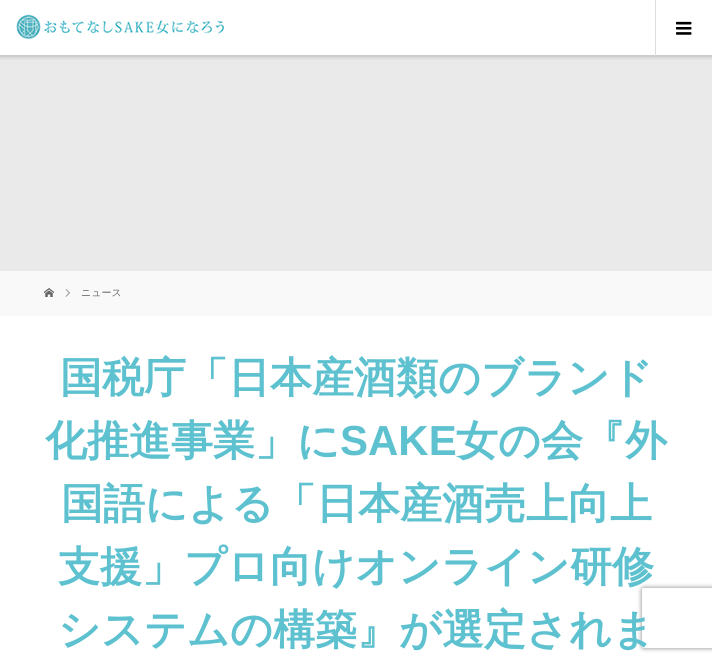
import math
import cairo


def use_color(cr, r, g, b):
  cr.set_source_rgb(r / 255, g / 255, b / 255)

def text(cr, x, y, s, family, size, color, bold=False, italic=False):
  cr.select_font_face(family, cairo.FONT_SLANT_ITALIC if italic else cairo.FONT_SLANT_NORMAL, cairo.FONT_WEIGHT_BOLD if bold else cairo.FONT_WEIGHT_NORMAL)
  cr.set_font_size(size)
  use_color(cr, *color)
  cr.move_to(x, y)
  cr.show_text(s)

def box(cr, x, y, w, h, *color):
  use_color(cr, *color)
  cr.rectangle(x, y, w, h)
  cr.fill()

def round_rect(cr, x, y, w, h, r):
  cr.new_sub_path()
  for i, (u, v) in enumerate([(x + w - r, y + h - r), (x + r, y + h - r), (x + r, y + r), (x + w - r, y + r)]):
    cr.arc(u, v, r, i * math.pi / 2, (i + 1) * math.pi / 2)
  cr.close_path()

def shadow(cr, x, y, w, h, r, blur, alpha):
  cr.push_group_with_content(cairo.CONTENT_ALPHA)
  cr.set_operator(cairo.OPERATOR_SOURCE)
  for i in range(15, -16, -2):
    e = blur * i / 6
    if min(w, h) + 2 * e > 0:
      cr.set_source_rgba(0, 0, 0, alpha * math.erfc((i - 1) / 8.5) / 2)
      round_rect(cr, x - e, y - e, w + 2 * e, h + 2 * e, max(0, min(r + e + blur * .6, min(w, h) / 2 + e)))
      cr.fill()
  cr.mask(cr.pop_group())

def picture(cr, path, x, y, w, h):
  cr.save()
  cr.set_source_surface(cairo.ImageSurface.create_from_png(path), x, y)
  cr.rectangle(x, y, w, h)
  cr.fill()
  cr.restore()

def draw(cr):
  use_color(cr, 255, 255, 255)
  cr.paint()
  box(cr, 0, 56, 712, 215, 234, 234, 234)
  cr.save()
  cr.rectangle(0, 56, 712, 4)
  cr.clip()
  use_color(cr, 0, 0, 0)
  shadow(cr, 0, 1, 712, 56, 0, 2, 0.2)
  cr.restore()
  box(cr, 0, 55, 712, 1, 204, 204, 204)
  picture(cr, "img_01.png", 16, 14, 210, 26)
  box(cr, 655, 0, 1, 56, 221, 221, 221)
  picture(cr, "img_02.png", 676, 21, 16, 14)
  box(cr, 0, 271, 712, 45, 249, 249, 249)
  picture(cr, "img_03.png", 44, 288, 10, 9)
  picture(cr, "img_04.png", 65, 289, 5, 8)
  cr.save()
  cr.set_fill_rule(cairo.FILL_RULE_EVEN_ODD)
  cr.new_path()
  cr.move_to(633, 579)
  cr.line_to(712, 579)
  cr.line_to(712, 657)
  cr.line_to(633, 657)
  cr.close_path()
  cr.move_to(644, 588)
  cr.line_to(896, 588)
  cr.curve_to(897, 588, 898, 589, 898, 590)
  cr.line_to(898, 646)
  cr.curve_to(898, 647, 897, 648, 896, 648)
  cr.line_to(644, 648)
  cr.curve_to(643, 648, 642, 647, 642, 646)
  cr.line_to(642, 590)
  cr.curve_to(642, 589, 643, 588, 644, 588)
  cr.close_path()
  cr.clip()
  use_color(cr, 128, 128, 128)
  shadow(cr, 642, 588, 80, 60, 2, 2.5, 1)
  cr.restore()
  text(cr, 81, 296, "ニュース", "WenQuanYi Zen Hei Medium", 10, (102, 102, 102))
  text(cr, 60, 392, "国税庁「日本産酒類のブランド", "WenQuanYi Zen Hei", 42, (93, 193, 207), bold=True)
  text(cr, 45, 455, "化推進事業」に", "WenQuanYi Zen Hei", 42, (93, 193, 207), bold=True)
  text(cr, 340, 455, "SAKE", "Liberation Sans", 42, (93, 193, 207), bold=True)
  text(cr, 456, 455, "女の会『外", "WenQuanYi Zen Hei", 42, (93, 193, 207), bold=True)
  text(cr, 61, 518, "国語による「日本産酒売上向上", "WenQuanYi Zen Hei", 42, (93, 193, 207), bold=True)
  text(cr, 58, 581, "支援」プロ向けオンライン研修", "WenQuanYi Zen Hei", 42, (93, 193, 207), bold=True)
  text(cr, 58, 644, "システムの構築』が選定されま", "WenQuanYi Zen Hei", 42, (93, 193, 207), bold=True)


surface = cairo.ImageSurface(cairo.FORMAT_RGB24, 712, 662)
cr = cairo.Context(surface)
options = cairo.FontOptions()
options.set_hint_metrics(cairo.HINT_METRICS_OFF)
options.set_hint_style(cairo.HINT_STYLE_NONE)
cr.set_font_options(options)
cr.set_miter_limit(4)
draw(cr)
surface.write_to_png("out.png")
